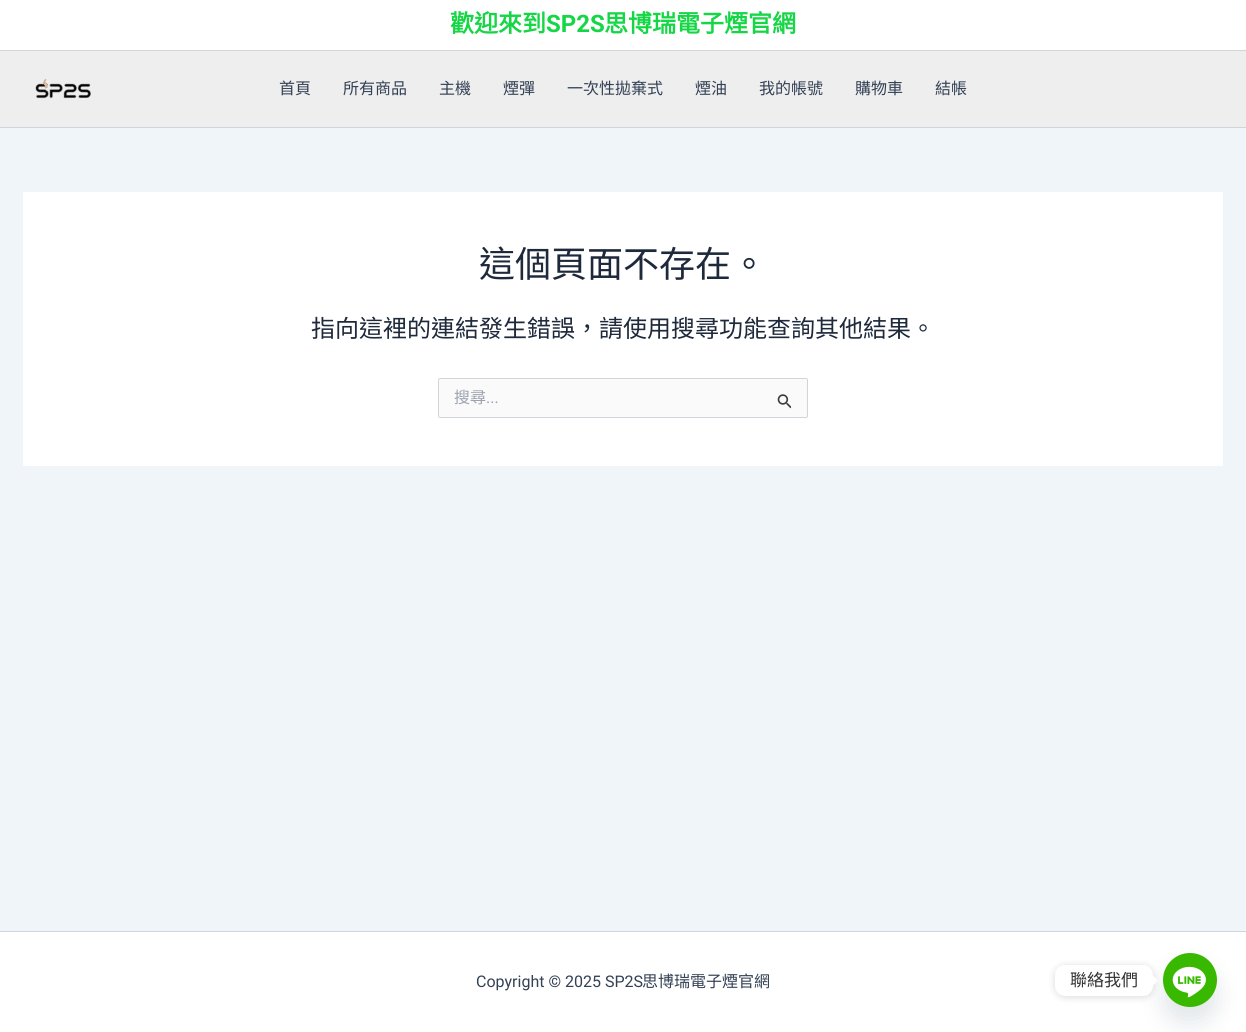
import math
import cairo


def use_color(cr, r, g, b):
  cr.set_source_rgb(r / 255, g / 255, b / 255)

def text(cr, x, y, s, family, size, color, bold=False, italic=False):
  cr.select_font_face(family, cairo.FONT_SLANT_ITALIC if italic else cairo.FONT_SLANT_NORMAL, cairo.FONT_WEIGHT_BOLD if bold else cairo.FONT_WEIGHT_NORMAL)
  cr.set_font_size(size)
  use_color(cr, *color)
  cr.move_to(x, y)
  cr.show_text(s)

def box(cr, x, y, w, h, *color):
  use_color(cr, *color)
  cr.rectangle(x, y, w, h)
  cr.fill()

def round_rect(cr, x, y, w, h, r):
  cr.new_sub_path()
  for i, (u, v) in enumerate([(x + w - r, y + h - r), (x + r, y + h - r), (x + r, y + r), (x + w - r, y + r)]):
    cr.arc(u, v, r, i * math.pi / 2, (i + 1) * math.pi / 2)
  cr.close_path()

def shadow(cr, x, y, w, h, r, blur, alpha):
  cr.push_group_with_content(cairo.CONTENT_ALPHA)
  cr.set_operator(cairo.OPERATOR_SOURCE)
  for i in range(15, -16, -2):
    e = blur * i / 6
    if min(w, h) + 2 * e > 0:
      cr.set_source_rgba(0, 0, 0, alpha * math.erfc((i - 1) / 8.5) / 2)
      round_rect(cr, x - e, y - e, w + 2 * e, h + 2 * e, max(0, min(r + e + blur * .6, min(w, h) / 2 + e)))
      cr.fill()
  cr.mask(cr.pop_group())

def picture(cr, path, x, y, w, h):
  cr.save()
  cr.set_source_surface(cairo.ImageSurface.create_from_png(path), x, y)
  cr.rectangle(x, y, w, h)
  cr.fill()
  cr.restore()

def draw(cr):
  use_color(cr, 240, 245, 250)
  cr.paint()
  box(cr, 0, 0, 1246, 50, 255, 255, 255)
  box(cr, 0, 50, 1246, 1, 209, 213, 219)
  box(cr, 0, 51, 1246, 76, 238, 238, 238)
  box(cr, 0, 127, 1246, 1, 209, 213, 219)
  picture(cr, "img_01.png", 35, 79, 56, 20)
  box(cr, 23, 192, 1200, 274, 255, 255, 255)
  use_color(cr, 250, 250, 250)
  round_rect(cr, 438.5, 378.5, 369, 39, 1.5)
  cr.fill_preserve()
  use_color(cr, 209, 213, 219)
  cr.set_line_width(1)
  cr.stroke()
  picture(cr, "img_02.png", 777, 394, 14, 15)
  box(cr, 0, 932, 1246, 100, 255, 255, 255)
  box(cr, 0, 931, 1246, 1, 209, 213, 219)
  use_color(cr, 73, 104, 126)
  shadow(cr, 1163, 969, 54, 54, 27, 12, 0.16)
  picture(cr, "img_03.png", 1163, 953, 54, 54)
  use_color(cr, 0, 0, 0)
  shadow(cr, 1055, 966, 98, 31, 10, 4, 0.15)
  use_color(cr, 255, 255, 255)
  round_rect(cr, 1055, 965, 98, 31, 10)
  cr.fill()
  cr.new_path()
  cr.move_to(1153, 985.5)
  cr.line_to(1153, 975.5)
  cr.line_to(1158, 980.5)
  cr.close_path()
  cr.fill()
  text(cr, 450, 32, "歡迎來到", "Noto Sans CJK TC", 24, (21, 214, 69), bold=True)
  text(cr, 546, 32, "SP2S", "Roboto", 24, (21, 214, 69), bold=True)
  text(cr, 604, 32, "思博瑞電子煙官網", "Noto Sans CJK TC", 24, (21, 214, 69), bold=True)
  text(cr, 279, 94, "首頁", "Noto Sans CJK TC", 16, (51, 65, 85))
  text(cr, 343, 94, "所有商品", "Noto Sans CJK TC", 16, (51, 65, 85))
  text(cr, 439, 94, "主機", "Noto Sans CJK TC", 16, (51, 65, 85))
  text(cr, 503, 94, "煙彈", "Noto Sans CJK TC", 16, (51, 65, 85))
  text(cr, 567, 94, "一次性拋棄式", "Noto Sans CJK TC", 16, (51, 65, 85))
  text(cr, 695, 94, "煙油", "Noto Sans CJK TC", 16, (51, 65, 85))
  text(cr, 759, 94, "我的帳號", "Noto Sans CJK TC", 16, (51, 65, 85))
  text(cr, 855, 94, "購物車", "Noto Sans CJK TC", 16, (51, 65, 85))
  text(cr, 935, 94, "結帳", "Noto Sans CJK TC", 16, (51, 65, 85))
  text(cr, 479, 277, "這個頁面不存在。", "Noto Sans CJK TC", 36, (30, 41, 59))
  text(cr, 311, 337, "指向這裡的連結發生錯誤，請使用搜尋功能查詢其他結果。", "Noto Sans CJK TC", 24, (30, 41, 59))
  text(cr, 454, 403, "搜尋", "Noto Sans CJK TC", 16, (156, 163, 175))
  text(cr, 486, 403, "...", "Roboto", 16, (156, 163, 175))
  text(cr, 476, 987, "Copyright © 2025 SP2S", "Roboto", 16, (51, 65, 85))
  text(cr, 642, 987, "思博瑞電子煙官網", "Noto Sans CJK TC", 16, (51, 65, 85))
  text(cr, 1070, 986, "聯絡我們", "Noto Sans CJK TC", 17, (51, 51, 51))


surface = cairo.ImageSurface(cairo.FORMAT_RGB24, 1246, 1032)
cr = cairo.Context(surface)
options = cairo.FontOptions()
options.set_hint_metrics(cairo.HINT_METRICS_OFF)
options.set_hint_style(cairo.HINT_STYLE_NONE)
cr.set_font_options(options)
cr.set_miter_limit(4)
draw(cr)
surface.write_to_png("out.png")
